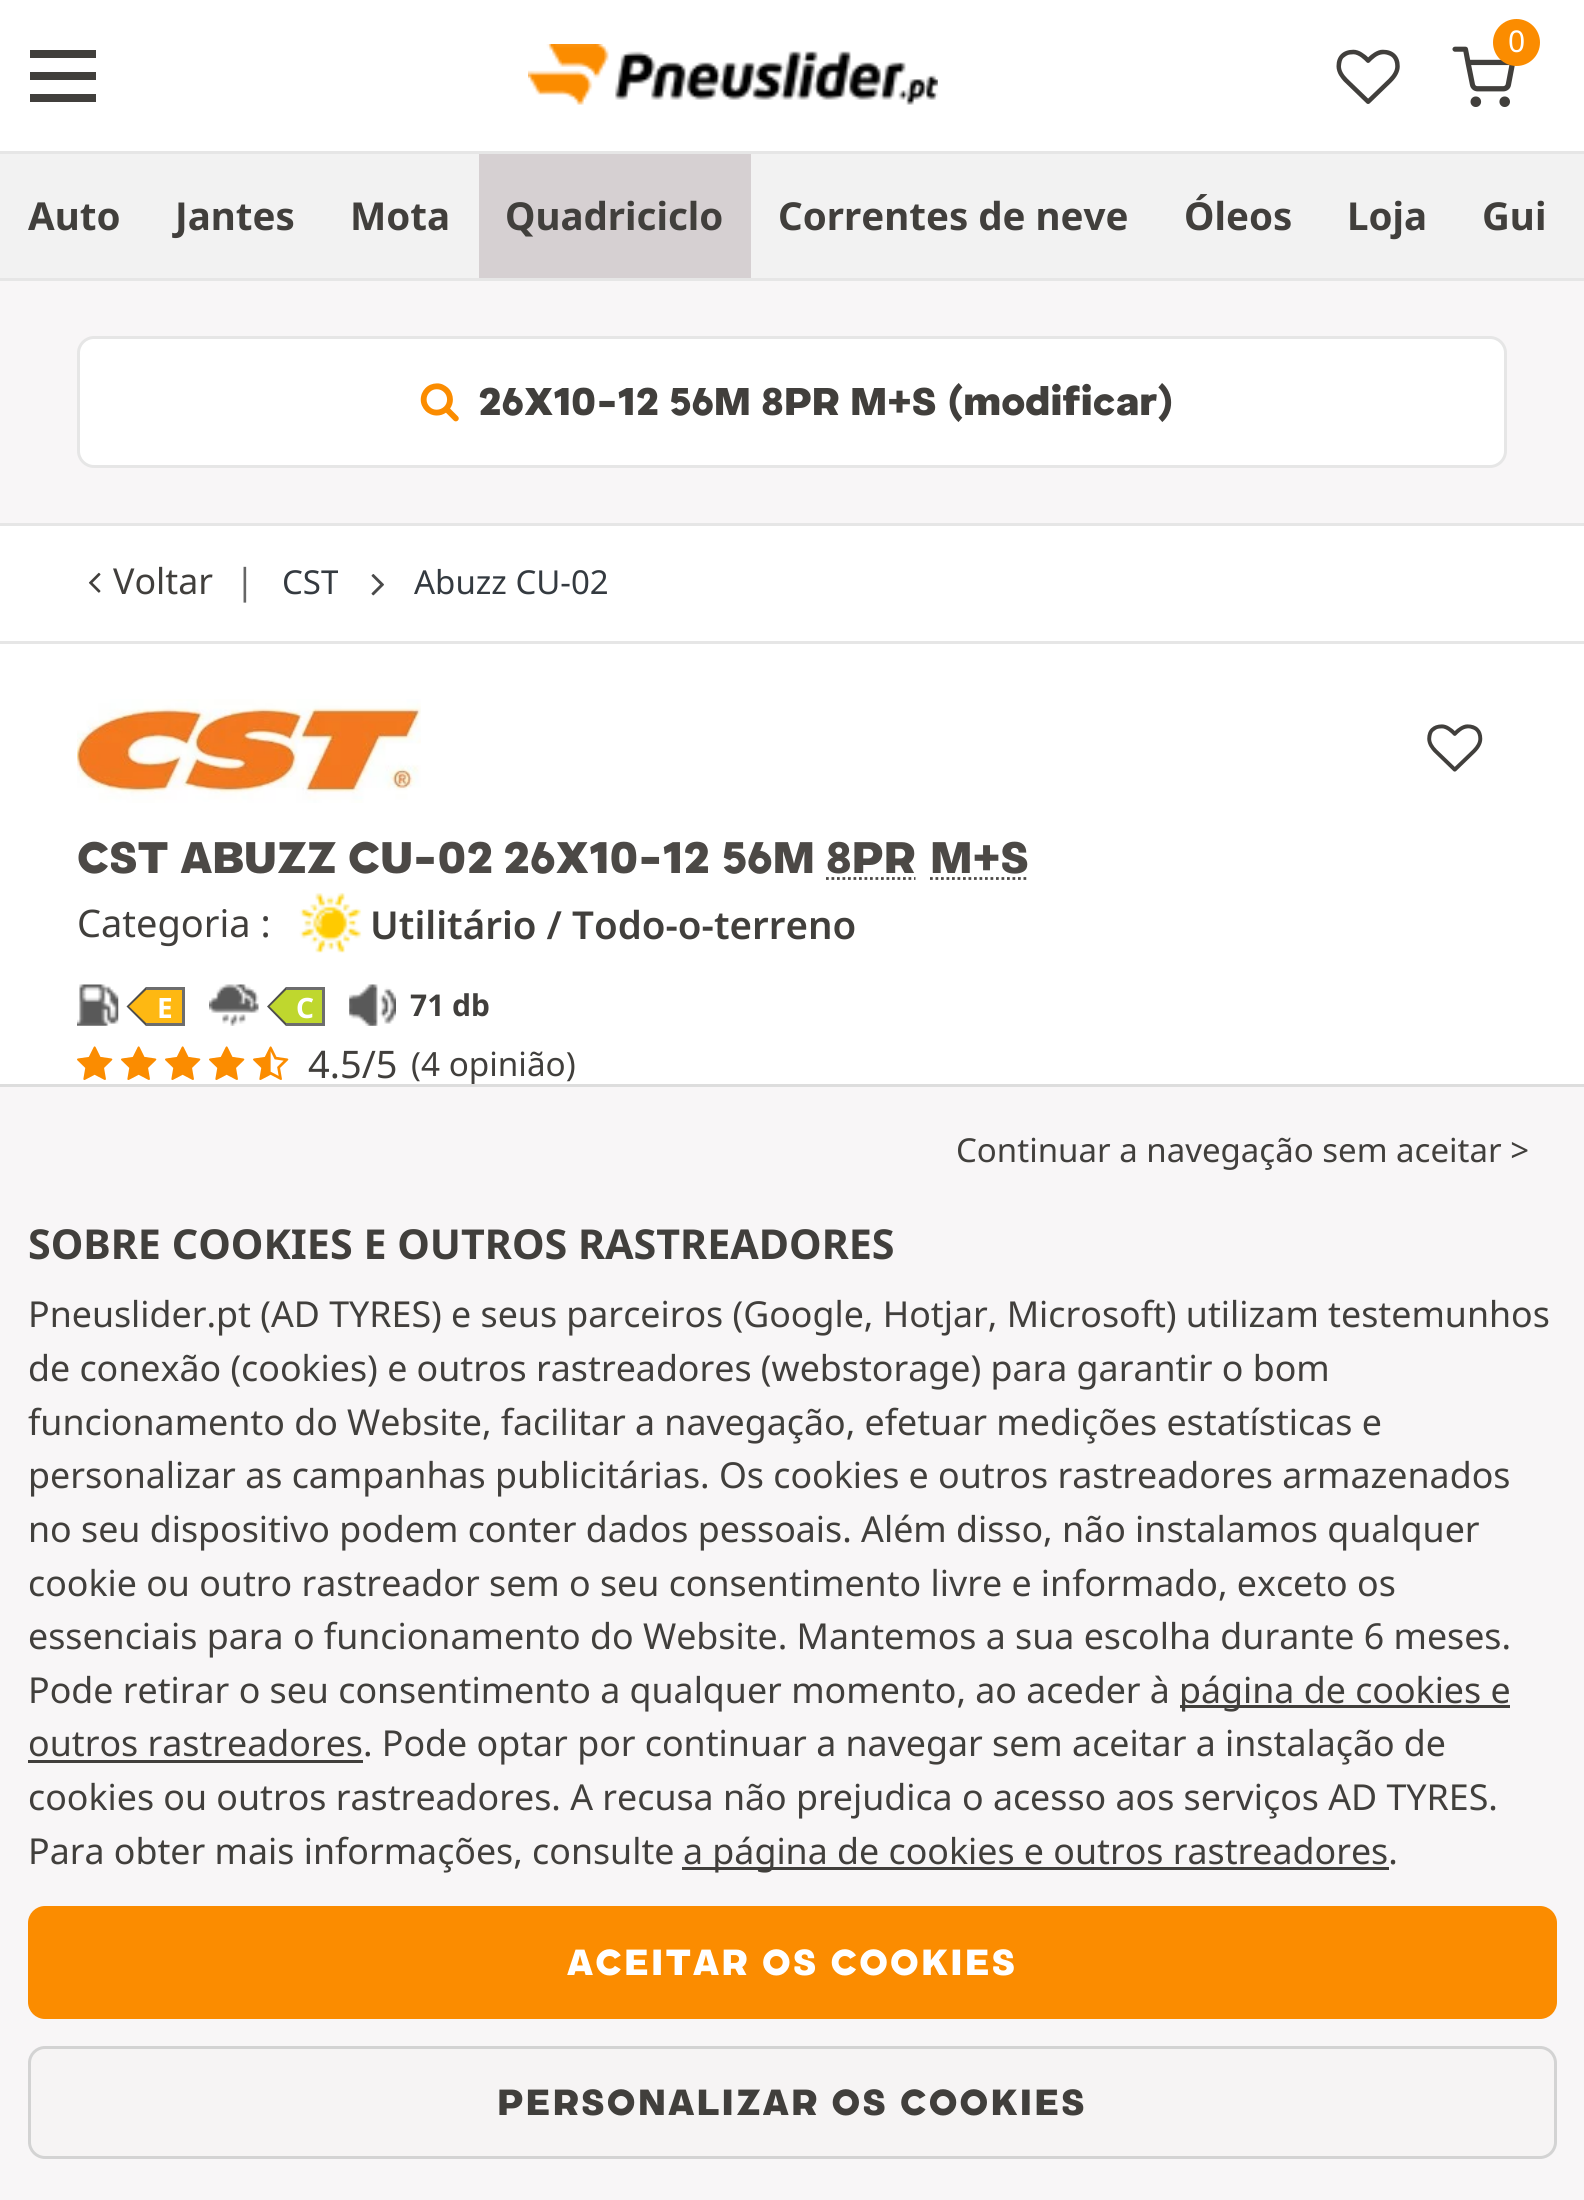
import math
import cairo


def use_color(cr, r, g, b):
  cr.set_source_rgb(r / 255, g / 255, b / 255)

def text(cr, x, y, s, family, size, color, bold=False, italic=False):
  cr.select_font_face(family, cairo.FONT_SLANT_ITALIC if italic else cairo.FONT_SLANT_NORMAL, cairo.FONT_WEIGHT_BOLD if bold else cairo.FONT_WEIGHT_NORMAL)
  cr.set_font_size(size)
  use_color(cr, *color)
  cr.move_to(x, y)
  cr.show_text(s)

def spaced_text(cr, x, y, s, letter, word):
  cr.move_to(x, y)
  for ch in s:
    cr.show_text(ch)
    cr.rel_move_to(letter + word * (ch == ' '), 0)

def box(cr, x, y, w, h, *color):
  use_color(cr, *color)
  cr.rectangle(x, y, w, h)
  cr.fill()

def round_rect(cr, x, y, w, h, r):
  cr.new_sub_path()
  for i, (u, v) in enumerate([(x + w - r, y + h - r), (x + r, y + h - r), (x + r, y + r), (x + w - r, y + r)]):
    cr.arc(u, v, r, i * math.pi / 2, (i + 1) * math.pi / 2)
  cr.close_path()

def picture(cr, path, x, y, w, h):
  cr.save()
  cr.set_source_surface(cairo.ImageSurface.create_from_png(path), x, y)
  cr.rectangle(x, y, w, h)
  cr.fill()
  cr.restore()

def draw(cr):
  use_color(cr, 255, 255, 255)
  cr.paint()
  picture(cr, "img_01.png", 1452, 46, 63, 61)
  use_color(cr, 251, 140, 0)
  cr.arc(1516.5, 42.5, 23.5, 0, 2 * math.pi)
  cr.fill()
  box(cr, 30, 50, 66, 8, 65, 63, 60)
  box(cr, 30, 72, 66, 8, 65, 63, 60)
  box(cr, 30, 94, 66, 8, 65, 63, 60)
  picture(cr, "img_02.png", 528, 44, 410, 61)
  picture(cr, "img_03.png", 1336, 49, 64, 55)
  box(cr, 0, 154, 1584, 124, 242, 242, 242)
  box(cr, 0, 151, 1584, 3, 230, 230, 230)
  box(cr, 0, 278, 1584, 3, 230, 230, 230)
  box(cr, 479, 154, 272, 124, 214, 208, 210)
  box(cr, 0, 281, 1584, 242, 248, 246, 247)
  use_color(cr, 255, 255, 255)
  round_rect(cr, 78.5, 337.5, 1427, 129, 15.5)
  cr.fill_preserve()
  use_color(cr, 230, 230, 230)
  cr.set_line_width(3)
  cr.stroke()
  picture(cr, "img_04.png", 420, 383, 39, 39)
  box(cr, 0, 523, 1584, 3, 230, 230, 230)
  box(cr, 0, 641, 1584, 3, 230, 230, 230)
  picture(cr, "img_05.png", 88, 572, 13, 21)
  picture(cr, "img_06.png", 371, 574, 13, 22)
  picture(cr, "img_07.png", 77, 699, 344, 104)
  picture(cr, "img_08.png", 1427, 724, 56, 48)
  cr.new_path()
  cr.move_to(826, 878.5)
  cr.line_to(915.5, 878.5)
  use_color(cr, 76, 73, 70)
  cr.set_line_width(2.8)
  cr.set_dash([2.75, 2.75])
  cr.stroke()
  cr.new_path()
  cr.move_to(930, 878.5)
  cr.line_to(1029, 878.5)
  cr.stroke()
  picture(cr, "img_09.png", 299, 892, 63, 61)
  picture(cr, "img_10.png", 77, 984, 42, 42)
  box(cr, 146, 990, 36, 33, 254, 184, 18)
  box(cr, 146, 987, 38, 3, 109, 109, 109)
  box(cr, 182, 987, 3, 39, 109, 109, 109)
  box(cr, 146, 1023, 38, 3, 109, 109, 109)
  use_color(cr, 76, 76, 76)
  cr.new_path()
  cr.move_to(146, 987)
  cr.line_to(146, 1026)
  cr.line_to(126.5, 1006.5)
  cr.close_path()
  cr.fill()
  use_color(cr, 254, 184, 18)
  cr.new_path()
  cr.move_to(146, 990)
  cr.line_to(146, 1023)
  cr.line_to(129, 1006.5)
  cr.close_path()
  cr.fill()
  picture(cr, "img_11.png", 209, 984, 50, 42)
  box(cr, 286, 990, 36, 33, 191, 215, 46)
  box(cr, 286, 987, 39, 3, 109, 109, 109)
  box(cr, 322, 987, 3, 39, 109, 109, 109)
  box(cr, 286, 1023, 39, 3, 109, 109, 109)
  use_color(cr, 76, 76, 76)
  cr.new_path()
  cr.move_to(286, 987)
  cr.line_to(286, 1026)
  cr.line_to(267, 1006.5)
  cr.close_path()
  cr.fill()
  use_color(cr, 191, 215, 46)
  cr.new_path()
  cr.move_to(286, 990)
  cr.line_to(286, 1023)
  cr.line_to(269.5, 1006.5)
  cr.close_path()
  cr.fill()
  picture(cr, "img_12.png", 349, 984, 47, 42)
  picture(cr, "img_13.png", 77, 1046, 36, 34)
  picture(cr, "img_13.png", 121, 1046, 36, 34)
  picture(cr, "img_13.png", 165, 1046, 36, 34)
  picture(cr, "img_13.png", 209, 1046, 36, 34)
  picture(cr, "img_14.png", 253, 1046, 36, 34)
  box(cr, 0, 1087, 1584, 1113, 248, 246, 247)
  box(cr, 0, 1084, 1584, 3, 221, 221, 221)
  box(cr, 1180, 1705, 330, 3, 65, 63, 60)
  box(cr, 28, 1760, 335, 3, 65, 63, 60)
  box(cr, 682, 1867, 707, 3, 65, 63, 60)
  use_color(cr, 251, 140, 0)
  round_rect(cr, 29.5, 1907.5, 1526, 110, 15.5)
  cr.fill_preserve()
  cr.set_line_width(3)
  cr.set_dash([])
  cr.stroke()
  use_color(cr, 246, 244, 244)
  round_rect(cr, 29.5, 2047.5, 1526, 110, 15.5)
  cr.fill_preserve()
  use_color(cr, 211, 211, 211)
  cr.stroke()
  text(cr, 1508, 52, "0", "Noto Sans", 30, (255, 255, 255))
  text(cr, 28, 230, "Auto", "Noto Sans", 38.5, (65, 63, 60), bold=True)
  text(cr, 175, 230, "Jantes", "Noto Sans", 38.5, (65, 63, 60), bold=True)
  text(cr, 350, 230, "Mota", "Noto Sans", 38.5, (65, 63, 60), bold=True)
  text(cr, 505, 230, "Quadriciclo", "Noto Sans", 38.5, (65, 63, 60), bold=True)
  text(cr, 778, 230, "Correntes de neve", "Noto Sans", 38.5, (65, 63, 60), bold=True)
  text(cr, 1184, 230, "Óleos", "Noto Sans", 38.5, (65, 63, 60), bold=True)
  text(cr, 1347, 230, "Loja", "Noto Sans", 38.5, (65, 63, 60), bold=True)
  text(cr, 1482, 230, "Gui", "Noto Sans", 38.5, (65, 63, 60), bold=True)
  text(cr, 478, 415, "26X10-12 56M 8PR M+S (modificar)", "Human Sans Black", 40.9, (65, 63, 60))
  text(cr, 113, 594, "Voltar", "Noto Sans", 35.75, (65, 63, 60))
  text(cr, 235, 594, "|", "Noto Sans", 35.75, (102, 102, 102))
  cr.save()
  cr.rectangle(283, 553, 55, 60)
  cr.clip()
  text(cr, 282, 594, "CST", "Noto Sans", 33, (52, 58, 64))
  cr.restore()
  text(cr, 414, 594, "Abuzz CU-02", "Noto Sans", 33, (52, 58, 64))
  text(cr, 77, 873, "CST ABUZZ CU-02", "Human Sans Black", 46.75, (76, 73, 70))
  text(cr, 503, 873, "26X10-12 56M", "Human Sans Black", 46.75, (76, 73, 70))
  text(cr, 826, 873, "8PR", "Human Sans Black", 46.75, (76, 73, 70))
  text(cr, 930, 873, "M+S", "Human Sans Black", 46.75, (76, 73, 70))
  text(cr, 77, 937, "Categoria :", "Noto Sans", 38, (65, 63, 60))
  text(cr, 370, 939, "Utilitário / Todo-o-terreno", "Noto Sans SemiBold", 38.5, (65, 63, 60))
  text(cr, 157, 1018, "E", "Noto Sans", 28, (255, 255, 255), bold=True)
  text(cr, 296, 1018, "C", "Noto Sans", 28, (255, 255, 255), bold=True)
  text(cr, 410, 1016, "71 db", "Noto Sans", 30, (65, 63, 60), bold=True)
  text(cr, 308, 1078, "4.5/5", "Noto Sans", 38, (65, 63, 60))
  text(cr, 411, 1076, "(4 opinião)", "Noto Sans", 33.25, (65, 63, 60))
  text(cr, 956, 1162, "Continuar a navegação sem aceitar >", "Noto Sans", 33, (65, 63, 60))
  text(cr, 28, 1259, "SOBRE COOKIES E OUTROS RASTREADORES", "Noto Sans", 41.25, (65, 63, 60), bold=True)
  text(cr, 28, 1327, "Pneuslider.pt (AD TYRES) e seus parceiros (Google, Hotjar, Microsoft) utilizam testemunhos", "Noto Sans", 35.75, (65, 63, 60))
  text(cr, 28, 1381, "de conexão (cookies) e outros rastreadores (webstorage) para garantir o bom", "Noto Sans", 35.75, (65, 63, 60))
  text(cr, 28, 1435, "funcionamento do Website, facilitar a navegação, efetuar medições estatísticas e", "Noto Sans", 35.75, (65, 63, 60))
  text(cr, 28, 1488, "personalizar as campanhas publicitárias. Os cookies e outros rastreadores armazenados", "Noto Sans", 35.75, (65, 63, 60))
  text(cr, 28, 1542, "no seu dispositivo podem conter dados pessoais. Além disso, não instalamos qualquer", "Noto Sans", 35.75, (65, 63, 60))
  text(cr, 28, 1596, "cookie ou outro rastreador sem o seu consentimento livre e informado, exceto os", "Noto Sans", 35.75, (65, 63, 60))
  text(cr, 28, 1649, "essenciais para o funcionamento do Website. Mantemos a sua escolha durante 6 meses.", "Noto Sans", 35.75, (65, 63, 60))
  text(cr, 28, 1703, "Pode retirar o seu consentimento a qualquer momento, ao aceder à", "Noto Sans", 35.75, (65, 63, 60))
  text(cr, 1179, 1703, "página de cookies e", "Noto Sans", 35.75, (65, 63, 60))
  text(cr, 28, 1756, "outros rastreadores. Pode optar por continuar a navegar sem aceitar a instalação de", "Noto Sans", 35.75, (65, 63, 60))
  text(cr, 28, 1810, "cookies ou outros rastreadores. A recusa não prejudica o acesso aos serviços AD TYRES.", "Noto Sans", 35.75, (65, 63, 60))
  text(cr, 28, 1864, "Para obter mais informações, consulte", "Noto Sans", 35.75, (65, 63, 60))
  text(cr, 683, 1864, "a página de cookies e outros rastreadores.", "Noto Sans", 35.75, (65, 63, 60))
  cr.select_font_face("Human Sans Black")
  cr.set_font_size(38.5)
  use_color(cr, 255, 255, 255)
  spaced_text(cr, 567, 1975, "ACEITAR OS COOKIES", 2.2, 0)
  use_color(cr, 65, 63, 60)
  spaced_text(cr, 497, 2115, "PERSONALIZAR OS COOKIES", 2.2, 0)


surface = cairo.ImageSurface(cairo.FORMAT_RGB24, 1584, 2200)
cr = cairo.Context(surface)
options = cairo.FontOptions()
options.set_hint_metrics(cairo.HINT_METRICS_OFF)
options.set_hint_style(cairo.HINT_STYLE_NONE)
cr.set_font_options(options)
cr.set_miter_limit(4)
draw(cr)
surface.write_to_png("out.png")
